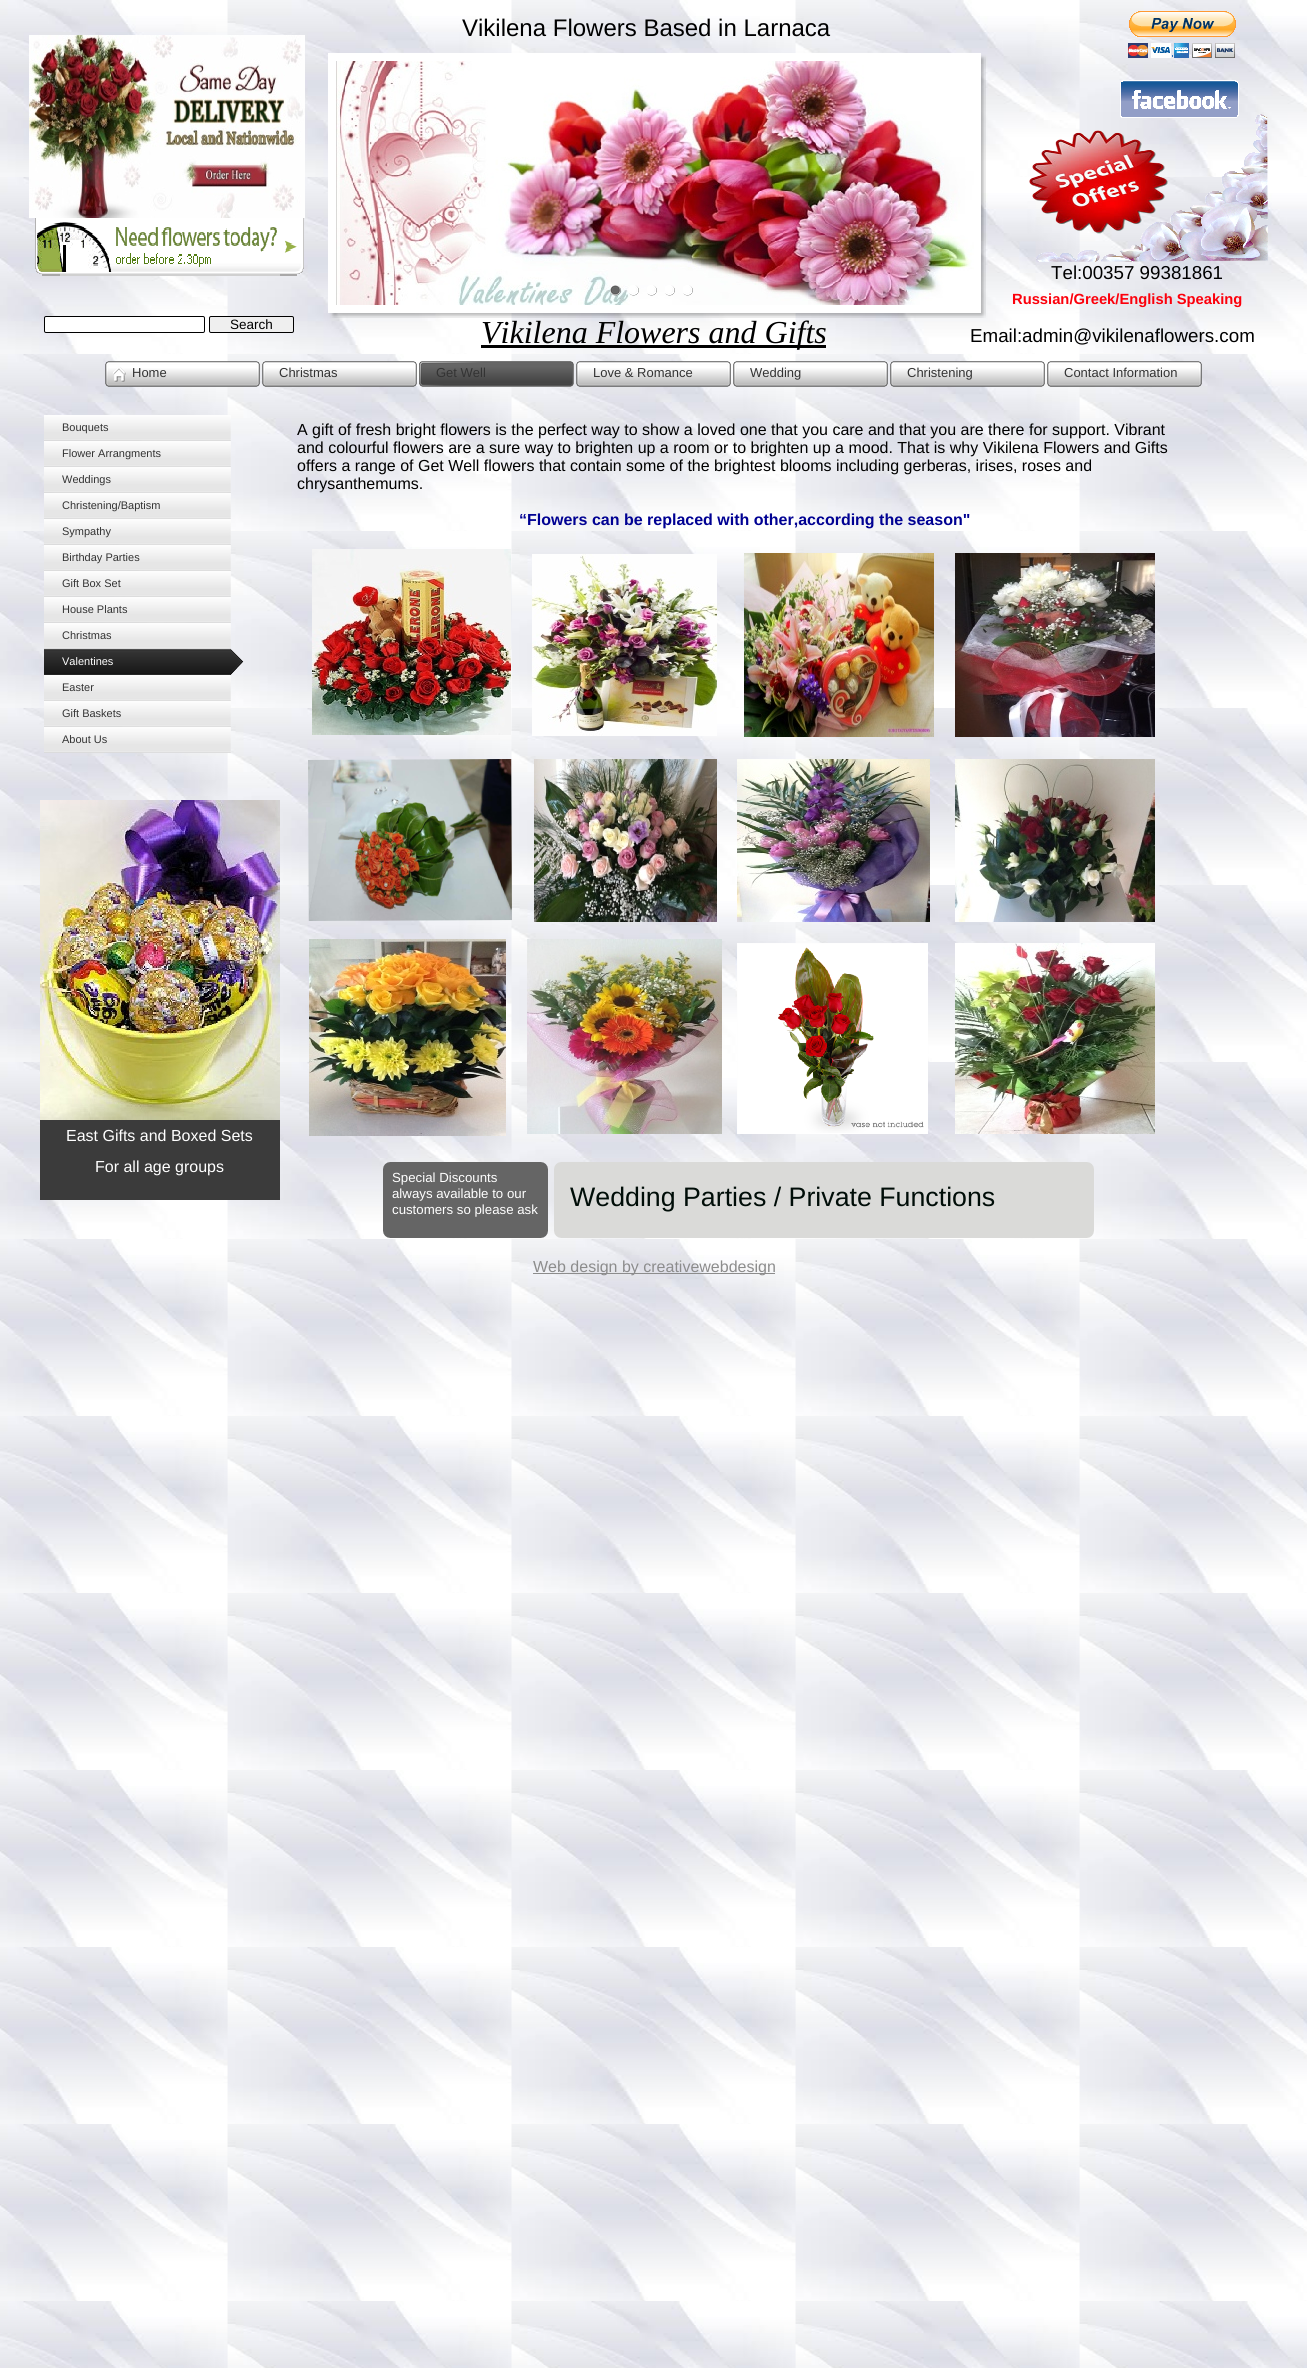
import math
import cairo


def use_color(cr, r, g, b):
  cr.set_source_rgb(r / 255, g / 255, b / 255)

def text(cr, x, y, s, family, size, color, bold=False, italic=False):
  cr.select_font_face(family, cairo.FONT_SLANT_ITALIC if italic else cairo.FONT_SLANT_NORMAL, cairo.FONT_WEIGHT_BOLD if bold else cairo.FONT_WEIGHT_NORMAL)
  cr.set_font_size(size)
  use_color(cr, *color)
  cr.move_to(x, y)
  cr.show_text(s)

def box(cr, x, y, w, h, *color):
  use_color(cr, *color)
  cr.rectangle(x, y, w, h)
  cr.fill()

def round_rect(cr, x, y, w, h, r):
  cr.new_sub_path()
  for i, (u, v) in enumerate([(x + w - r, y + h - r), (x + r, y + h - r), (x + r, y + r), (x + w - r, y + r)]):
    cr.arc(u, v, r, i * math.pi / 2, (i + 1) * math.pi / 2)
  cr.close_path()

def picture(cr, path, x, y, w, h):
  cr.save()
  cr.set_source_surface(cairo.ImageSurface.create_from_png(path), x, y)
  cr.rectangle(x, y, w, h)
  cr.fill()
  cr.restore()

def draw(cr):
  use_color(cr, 255, 255, 255)
  cr.paint()
  picture(cr, "img_01.png", 0, 0, 1307, 2368)
  picture(cr, "img_02.png", 1128, 11, 108, 47)
  picture(cr, "img_03.png", 29, 35, 276, 183)
  picture(cr, "img_04.png", 328, 53, 658, 265)
  picture(cr, "img_05.png", 336, 61, 638, 244)
  picture(cr, "img_08.png", 1029, 114, 239, 148)
  picture(cr, "img_06.png", 1120, 80, 119, 38)
  picture(cr, "img_07.png", 35, 218, 269, 58)
  picture(cr, "img_09.png", 609, 285, 12, 11)
  picture(cr, "img_10.png", 628, 285, 11, 11)
  picture(cr, "img_11.png", 647, 285, 10, 11)
  picture(cr, "img_12.png", 665, 285, 10, 11)
  picture(cr, "img_13.png", 683, 285, 10, 11)
  use_color(cr, 255, 255, 255)
  round_rect(cr, 44.5, 316.5, 160, 16, 1.5)
  cr.fill_preserve()
  use_color(cr, 0, 0, 0)
  cr.set_line_width(1)
  cr.stroke()
  use_color(cr, 239, 239, 239)
  round_rect(cr, 209.5, 316.5, 84, 16, 1.5)
  cr.fill_preserve()
  use_color(cr, 0, 0, 0)
  cr.stroke()
  box(cr, 481, 345, 345, 3, 0, 0, 0)
  picture(cr, "img_14.png", 105, 361, 155, 26)
  picture(cr, "img_15.png", 262, 361, 155, 26)
  picture(cr, "img_16.png", 419, 361, 155, 26)
  picture(cr, "img_17.png", 576, 361, 155, 26)
  picture(cr, "img_18.png", 733, 361, 155, 26)
  picture(cr, "img_19.png", 890, 361, 155, 26)
  picture(cr, "img_20.png", 1047, 361, 155, 26)
  picture(cr, "img_21.png", 44, 415, 187, 26)
  picture(cr, "img_22.png", 44, 441, 187, 26)
  picture(cr, "img_23.png", 44, 467, 187, 26)
  picture(cr, "img_24.png", 44, 493, 187, 26)
  picture(cr, "img_25.png", 44, 519, 187, 26)
  picture(cr, "img_26.png", 44, 545, 187, 26)
  picture(cr, "img_27.png", 44, 571, 187, 26)
  picture(cr, "img_28.png", 44, 597, 187, 26)
  picture(cr, "img_29.png", 44, 623, 187, 26)
  picture(cr, "img_30.png", 44, 649, 200, 26)
  picture(cr, "img_31.png", 44, 675, 187, 26)
  picture(cr, "img_32.png", 44, 701, 187, 26)
  picture(cr, "img_33.png", 44, 727, 187, 26)
  picture(cr, "img_34.png", 312, 549, 199, 186)
  picture(cr, "img_35.png", 532, 554, 185, 182)
  picture(cr, "img_36.png", 744, 553, 190, 184)
  picture(cr, "img_37.png", 955, 553, 200, 184)
  picture(cr, "img_38.png", 308, 759, 204, 162)
  picture(cr, "img_39.png", 534, 759, 183, 163)
  picture(cr, "img_40.png", 737, 759, 193, 163)
  picture(cr, "img_41.png", 955, 759, 200, 163)
  picture(cr, "img_42.png", 309, 939, 197, 197)
  picture(cr, "img_43.png", 527, 939, 195, 195)
  picture(cr, "img_44.png", 737, 943, 191, 191)
  picture(cr, "img_45.png", 955, 943, 200, 191)
  picture(cr, "img_46.png", 40, 800, 240, 320)
  box(cr, 40, 1120, 240, 80, 59, 59, 59)
  picture(cr, "img_47.png", 383, 1162, 165, 76)
  picture(cr, "img_48.png", 554, 1162, 540, 76)
  box(cr, 533, 1273, 242, 1, 140, 140, 140)
  text(cr, 462, 36, "Vikilena Flowers Based in Larnaca", "Liberation Sans", 24, (0, 0, 0))
  text(cr, 1051, 279, "Tel:00357 99381861", "Liberation Sans", 18.75, (0, 0, 0))
  text(cr, 1012, 304, "Russian/Greek/English Speaking", "Liberation Sans", 14.75, (252, 0, 11), bold=True)
  text(cr, 230, 329, "Search", "Liberation Sans", 13.5, (0, 0, 0))
  text(cr, 481, 343, "Vikilena Flowers and Gifts", "Liberation Serif", 32, (0, 0, 0), italic=True)
  text(cr, 970, 342, "Email:admin@vikilenaflowers.com", "Liberation Sans", 18.75, (0, 0, 0))
  text(cr, 132, 377, "Home", "Liberation Sans", 13, (51, 51, 51))
  text(cr, 279, 377, "Christmas", "Liberation Sans", 13, (51, 51, 51))
  text(cr, 436, 377, "Get Well", "Liberation Sans", 13, (51, 51, 51))
  text(cr, 593, 377, "Love & Romance", "Liberation Sans", 13, (51, 51, 51))
  text(cr, 750, 377, "Wedding", "Liberation Sans", 13, (51, 51, 51))
  text(cr, 907, 377, "Christening", "Liberation Sans", 13, (51, 51, 51))
  text(cr, 1064, 377, "Contact Information", "Liberation Sans", 13, (51, 51, 51))
  text(cr, 62, 431, "Bouquets", "Liberation Sans", 11, (51, 51, 51))
  text(cr, 62, 457, "Flower Arrangments", "Liberation Sans", 11, (51, 51, 51))
  text(cr, 62, 483, "Weddings", "Liberation Sans", 11, (51, 51, 51))
  text(cr, 62, 509, "Christening/Baptism", "Liberation Sans", 11, (51, 51, 51))
  text(cr, 62, 535, "Sympathy", "Liberation Sans", 11, (51, 51, 51))
  text(cr, 62, 561, "Birthday Parties", "Liberation Sans", 11, (51, 51, 51))
  text(cr, 62, 587, "Gift Box Set", "Liberation Sans", 11, (51, 51, 51))
  text(cr, 62, 613, "House Plants", "Liberation Sans", 11, (51, 51, 51))
  text(cr, 62, 639, "Christmas", "Liberation Sans", 11, (51, 51, 51))
  text(cr, 62, 665, "Valentines", "Liberation Sans", 11, (255, 255, 255))
  text(cr, 62, 691, "Easter", "Liberation Sans", 11, (51, 51, 51))
  text(cr, 62, 717, "Gift Baskets", "Liberation Sans", 11, (51, 51, 51))
  text(cr, 62, 743, "About Us", "Liberation Sans", 11, (51, 51, 51))
  text(cr, 297, 435, "A gift of fresh bright flowers is the perfect way to show a loved one that you care and that you are there for support. Vibrant", "Liberation Sans", 16, (0, 0, 0))
  text(cr, 297, 453, "and colourful flowers are a sure way to brighten up a room or to brighten up a mood. That is why Vikilena Flowers and Gifts", "Liberation Sans", 16, (0, 0, 0))
  text(cr, 297, 471, "offers a range of Get Well flowers that contain some of the brightest blooms including gerberas, irises, roses and", "Liberation Sans", 16, (0, 0, 0))
  text(cr, 297, 489, "chrysanthemums.", "Liberation Sans", 16, (0, 0, 0))
  text(cr, 519, 525, "“Flowers can be replaced with other,according the season\"", "Liberation Sans", 16, (0, 1, 147), bold=True)
  text(cr, 66, 1141, "East Gifts and Boxed Sets", "Liberation Sans", 16, (255, 255, 255))
  text(cr, 95, 1172, "For all age groups", "Liberation Sans", 16, (255, 255, 255))
  text(cr, 392, 1182, "Special Discounts", "Liberation Sans", 13.25, (255, 255, 255))
  text(cr, 392, 1198, "always available to our", "Liberation Sans", 13.25, (255, 255, 255))
  text(cr, 392, 1214, "customers so please ask", "Liberation Sans", 13.25, (255, 255, 255))
  text(cr, 570, 1206, "Wedding Parties / Private Functions", "Liberation Sans", 26.75, (0, 13, 8))
  text(cr, 533, 1272, "Web design by creativewebdesign", "Liberation Sans", 16, (140, 140, 140))


surface = cairo.ImageSurface(cairo.FORMAT_RGB24, 1307, 2368)
cr = cairo.Context(surface)
options = cairo.FontOptions()
options.set_hint_metrics(cairo.HINT_METRICS_OFF)
options.set_hint_style(cairo.HINT_STYLE_NONE)
cr.set_font_options(options)
cr.set_miter_limit(4)
draw(cr)
surface.write_to_png("out.png")
